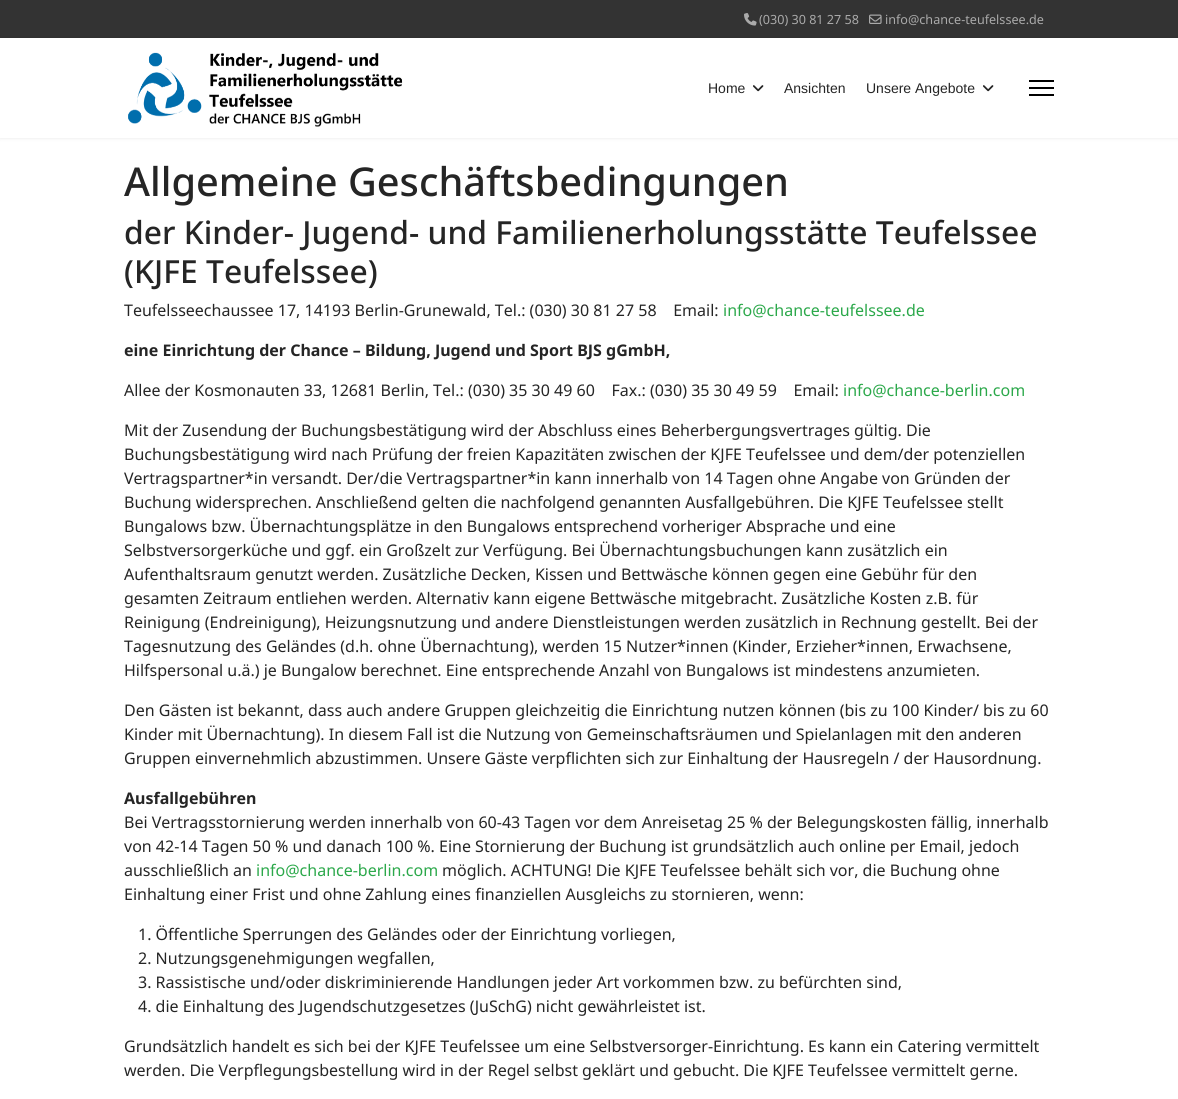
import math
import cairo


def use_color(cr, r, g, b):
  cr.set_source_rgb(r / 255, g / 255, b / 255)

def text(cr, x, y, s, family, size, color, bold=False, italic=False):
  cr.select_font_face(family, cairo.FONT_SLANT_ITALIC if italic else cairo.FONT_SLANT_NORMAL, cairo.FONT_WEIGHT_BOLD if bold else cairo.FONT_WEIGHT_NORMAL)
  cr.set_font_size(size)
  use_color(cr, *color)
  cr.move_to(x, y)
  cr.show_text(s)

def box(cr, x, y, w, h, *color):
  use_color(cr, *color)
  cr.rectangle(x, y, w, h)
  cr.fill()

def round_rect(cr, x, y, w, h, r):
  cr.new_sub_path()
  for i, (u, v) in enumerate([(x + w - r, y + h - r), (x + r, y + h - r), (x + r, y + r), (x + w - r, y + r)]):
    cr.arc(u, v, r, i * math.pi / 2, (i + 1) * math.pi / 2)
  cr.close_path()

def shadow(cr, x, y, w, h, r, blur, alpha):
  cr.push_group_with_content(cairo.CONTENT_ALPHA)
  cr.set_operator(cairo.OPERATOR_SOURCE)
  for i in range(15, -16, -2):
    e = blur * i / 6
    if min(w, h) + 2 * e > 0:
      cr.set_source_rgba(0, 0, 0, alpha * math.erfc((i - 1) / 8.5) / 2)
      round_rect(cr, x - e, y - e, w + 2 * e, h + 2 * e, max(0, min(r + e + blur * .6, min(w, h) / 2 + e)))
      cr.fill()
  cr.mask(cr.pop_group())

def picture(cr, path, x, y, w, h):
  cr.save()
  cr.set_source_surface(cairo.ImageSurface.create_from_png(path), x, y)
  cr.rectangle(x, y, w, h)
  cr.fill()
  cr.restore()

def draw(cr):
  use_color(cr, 255, 255, 255)
  cr.paint()
  box(cr, 0, 0, 1178, 38, 51, 51, 51)
  picture(cr, "img_01.png", 744, 13, 13, 13)
  picture(cr, "img_02.png", 869, 14, 13, 10)
  cr.save()
  cr.set_fill_rule(cairo.FILL_RULE_EVEN_ODD)
  cr.new_path()
  cr.move_to(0, 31)
  cr.line_to(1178, 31)
  cr.line_to(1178, 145)
  cr.line_to(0, 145)
  cr.close_path()
  cr.move_to(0, 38)
  cr.line_to(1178, 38)
  cr.line_to(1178, 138)
  cr.line_to(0, 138)
  cr.close_path()
  cr.clip()
  use_color(cr, 0, 0, 0)
  shadow(cr, 0, 38, 1178, 100, 0, 2, 0.1)
  cr.restore()
  picture(cr, "img_03.png", 128, 52, 275, 75)
  picture(cr, "img_04.png", 753, 85, 11, 7)
  picture(cr, "img_04.png", 983, 85, 11, 7)
  box(cr, 1029, 80, 25, 2, 0, 0, 0)
  box(cr, 1029, 87, 25, 2, 0, 0, 0)
  box(cr, 1029, 94, 25, 2, 0, 0, 0)
  text(cr, 759, 24, "(030) 30 81 27 58", "Noto Sans", 12.6, (170, 170, 170))
  text(cr, 885, 24, "info@chance-teufelssee.de", "Noto Sans", 12.6, (170, 170, 170))
  text(cr, 708, 93, "Home", "Liberation Sans", 14, (37, 37, 37))
  text(cr, 784, 93, "Ansichten", "Liberation Sans", 14, (37, 37, 37))
  text(cr, 866, 93, "Unsere Angebote", "Liberation Sans", 14, (37, 37, 37))
  text(cr, 124, 196, "Allgemeine Geschäftsbedingungen", "Noto Sans Medium", 39.7, (37, 37, 37))
  text(cr, 124, 244, "der Kinder- Jugend- und Familienerholungsstätte Teufelssee", "Noto Sans Medium", 31.8, (37, 37, 37))
  text(cr, 124, 283, "(KJFE Teufelssee)", "Noto Sans Medium", 31.8, (37, 37, 37))
  text(cr, 124, 316, "Teufelsseechaussee 17, 14193 Berlin-Grunewald, Tel.: (030) 30 81 27 58    Email:", "Noto Sans", 16, (37, 37, 37))
  text(cr, 723, 316, "info@chance-teufelssee.de", "Noto Sans", 16, (43, 168, 74))
  text(cr, 124, 356, "eine Einrichtung der Chance – Bildung, Jugend und Sport BJS gGmbH,", "Noto Sans", 16, (37, 37, 37), bold=True)
  text(cr, 124, 396, "Allee der Kosmonauten 33, 12681 Berlin, Tel.: (030) 35 30 49 60    Fax.: (030) 35 30 49 59    Email:", "Noto Sans", 16, (37, 37, 37))
  text(cr, 843, 396, "info@chance-berlin.com", "Noto Sans", 16, (43, 168, 74))
  text(cr, 124, 436, "Mit der Zusendung der Buchungsbestätigung wird der Abschluss eines Beherbergungsvertrages gültig. Die", "Noto Sans", 16, (37, 37, 37))
  text(cr, 124, 460, "Buchungsbestätigung wird nach Prüfung der freien Kapazitäten zwischen der KJFE Teufelssee und dem/der potenziellen", "Noto Sans", 16, (37, 37, 37))
  text(cr, 124, 484, "Vertragspartner*in versandt. Der/die Vertragspartner*in kann innerhalb von 14 Tagen ohne Angabe von Gründen der", "Noto Sans", 16, (37, 37, 37))
  text(cr, 124, 508, "Buchung widersprechen. Anschließend gelten die nachfolgend genannten Ausfallgebühren. Die KJFE Teufelssee stellt", "Noto Sans", 16, (37, 37, 37))
  text(cr, 124, 532, "Bungalows bzw. Übernachtungsplätze in den Bungalows entsprechend vorheriger Absprache und eine", "Noto Sans", 16, (37, 37, 37))
  text(cr, 124, 556, "Selbstversorgerküche und ggf. ein Großzelt zur Verfügung. Bei Übernachtungsbuchungen kann zusätzlich ein", "Noto Sans", 16, (37, 37, 37))
  text(cr, 124, 580, "Aufenthaltsraum genutzt werden. Zusätzliche Decken, Kissen und Bettwäsche können gegen eine Gebühr für den", "Noto Sans", 16, (37, 37, 37))
  text(cr, 124, 604, "gesamten Zeitraum entliehen werden. Alternativ kann eigene Bettwäsche mitgebracht. Zusätzliche Kosten z.B. für", "Noto Sans", 16, (37, 37, 37))
  text(cr, 124, 628, "Reinigung (Endreinigung), Heizungsnutzung und andere Dienstleistungen werden zusätzlich in Rechnung gestellt. Bei der", "Noto Sans", 16, (37, 37, 37))
  text(cr, 124, 652, "Tagesnutzung des Geländes (d.h. ohne Übernachtung), werden 15 Nutzer*innen (Kinder, Erzieher*innen, Erwachsene,", "Noto Sans", 16, (37, 37, 37))
  text(cr, 124, 676, "Hilfspersonal u.ä.) je Bungalow berechnet. Eine entsprechende Anzahl von Bungalows ist mindestens anzumieten.", "Noto Sans", 16, (37, 37, 37))
  text(cr, 124, 716, "Den Gästen ist bekannt, dass auch andere Gruppen gleichzeitig die Einrichtung nutzen können (bis zu 100 Kinder/ bis zu 60", "Noto Sans", 16, (37, 37, 37))
  text(cr, 124, 740, "Kinder mit Übernachtung). In diesem Fall ist die Nutzung von Gemeinschaftsräumen und Spielanlagen mit den anderen", "Noto Sans", 16, (37, 37, 37))
  text(cr, 124, 764, "Gruppen einvernehmlich abzustimmen. Unsere Gäste verpflichten sich zur Einhaltung der Hausregeln / der Hausordnung.", "Noto Sans", 16, (37, 37, 37))
  text(cr, 124, 804, "Ausfallgebühren", "Noto Sans", 16, (37, 37, 37), bold=True)
  text(cr, 124, 828, "Bei Vertragsstornierung werden innerhalb von 60-43 Tagen vor dem Anreisetag 25 % der Belegungskosten fällig, innerhalb", "Noto Sans", 16, (37, 37, 37))
  text(cr, 124, 852, "von 42-14 Tagen 50 % und danach 100 %. Eine Stornierung der Buchung ist grundsätzlich auch online per Email, jedoch", "Noto Sans", 16, (37, 37, 37))
  text(cr, 124, 876, "ausschließlich an", "Noto Sans", 16, (37, 37, 37))
  text(cr, 256, 876, "info@chance-berlin.com", "Noto Sans", 16, (43, 168, 74))
  text(cr, 442, 876, "möglich. ACHTUNG! Die KJFE Teufelssee behält sich vor, die Buchung ohne", "Noto Sans", 16, (37, 37, 37))
  text(cr, 124, 900, "Einhaltung einer Frist und ohne Zahlung eines finanziellen Ausgleichs zu stornieren, wenn:", "Noto Sans", 16, (37, 37, 37))
  text(cr, 138, 940, "1. Öffentliche Sperrungen des Geländes oder der Einrichtung vorliegen,", "Noto Sans", 16, (37, 37, 37))
  text(cr, 138, 964, "2. Nutzungsgenehmigungen wegfallen,", "Noto Sans", 16, (37, 37, 37))
  text(cr, 138, 988, "3. Rassistische und/oder diskriminierende Handlungen jeder Art vorkommen bzw. zu befürchten sind,", "Noto Sans", 16, (37, 37, 37))
  text(cr, 138, 1012, "4. die Einhaltung des Jugendschutzgesetzes (JuSchG) nicht gewährleistet ist.", "Noto Sans", 16, (37, 37, 37))
  text(cr, 124, 1052, "Grundsätzlich handelt es sich bei der KJFE Teufelssee um eine Selbstversorger-Einrichtung. Es kann ein Catering vermittelt", "Noto Sans", 16, (37, 37, 37))
  text(cr, 124, 1076, "werden. Die Verpflegungsbestellung wird in der Regel selbst geklärt und gebucht. Die KJFE Teufelssee vermittelt gerne.", "Noto Sans", 16, (37, 37, 37))


surface = cairo.ImageSurface(cairo.FORMAT_RGB24, 1178, 1099)
cr = cairo.Context(surface)
options = cairo.FontOptions()
options.set_hint_metrics(cairo.HINT_METRICS_OFF)
options.set_hint_style(cairo.HINT_STYLE_NONE)
cr.set_font_options(options)
cr.set_miter_limit(4)
draw(cr)
surface.write_to_png("out.png")
